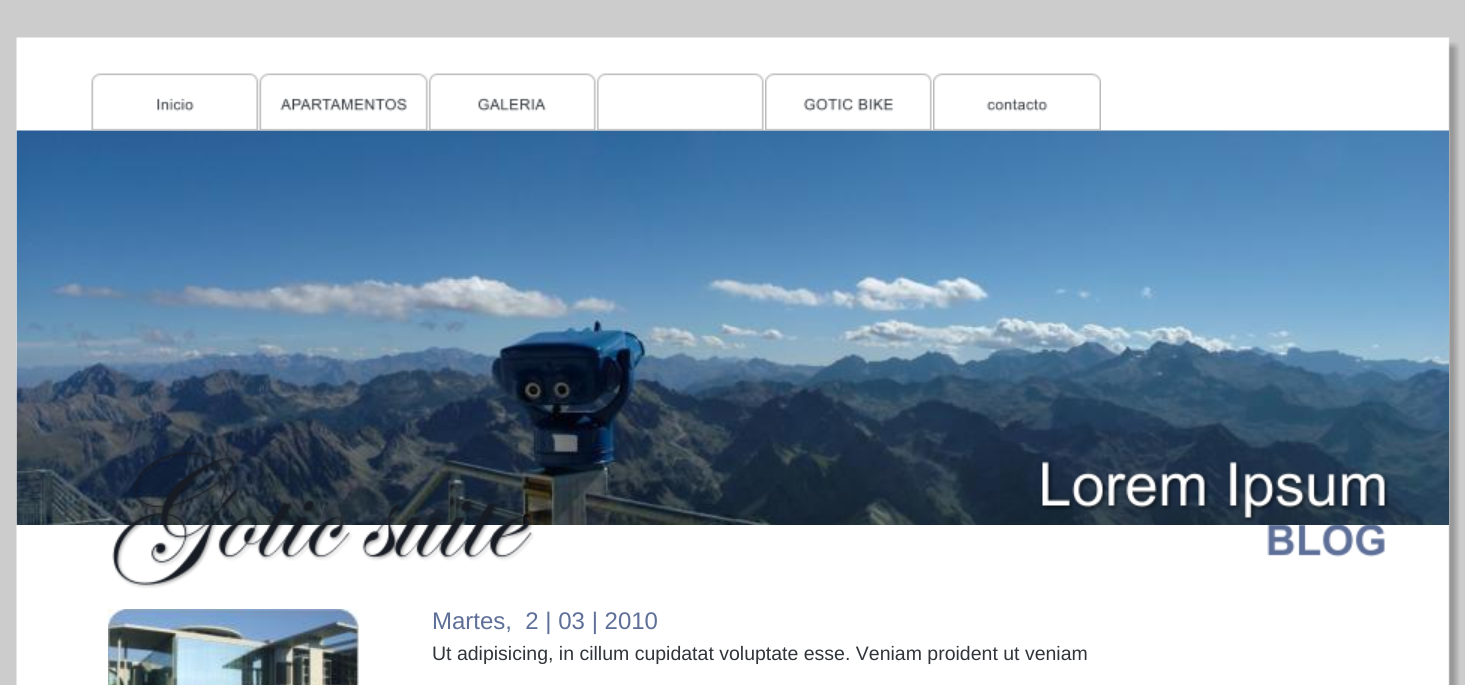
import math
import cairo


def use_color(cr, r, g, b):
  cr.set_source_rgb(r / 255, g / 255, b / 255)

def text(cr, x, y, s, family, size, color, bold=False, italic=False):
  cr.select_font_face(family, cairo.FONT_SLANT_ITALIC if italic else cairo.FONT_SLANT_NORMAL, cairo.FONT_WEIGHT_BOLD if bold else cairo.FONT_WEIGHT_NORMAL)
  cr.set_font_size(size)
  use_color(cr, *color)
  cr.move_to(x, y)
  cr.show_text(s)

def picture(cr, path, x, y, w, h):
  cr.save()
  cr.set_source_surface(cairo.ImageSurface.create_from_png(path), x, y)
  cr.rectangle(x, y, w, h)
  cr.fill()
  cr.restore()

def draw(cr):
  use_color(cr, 204, 204, 204)
  cr.paint()
  picture(cr, "img_01.png", 16, 37, 1444, 648)
  picture(cr, "img_08.png", 16, 130, 1433, 395)
  picture(cr, "img_02.png", 91, 73, 168, 58)
  picture(cr, "img_03.png", 259, 73, 169, 58)
  picture(cr, "img_04.png", 428, 73, 168, 58)
  picture(cr, "img_05.png", 596, 73, 168, 58)
  picture(cr, "img_06.png", 765, 73, 167, 58)
  picture(cr, "img_07.png", 933, 73, 168, 58)
  picture(cr, "img_09.png", 112, 451, 422, 138)
  picture(cr, "img_10.png", 1041, 461, 348, 61)
  picture(cr, "img_11.png", 1267, 525, 118, 32)
  picture(cr, "img_12.png", 108, 609, 251, 76)
  text(cr, 432, 629, "Martes,  2 | 03 | 2010", "Liberation Sans", 24, (94, 111, 152))
  text(cr, 432, 660, "Ut adipisicing, in cillum cupidatat voluptate esse. Veniam proident ut veniam", "Liberation Sans", 19.5, (49, 53, 58))


surface = cairo.ImageSurface(cairo.FORMAT_RGB24, 1465, 685)
cr = cairo.Context(surface)
options = cairo.FontOptions()
options.set_hint_metrics(cairo.HINT_METRICS_OFF)
options.set_hint_style(cairo.HINT_STYLE_NONE)
cr.set_font_options(options)
cr.set_miter_limit(4)
draw(cr)
surface.write_to_png("out.png")
